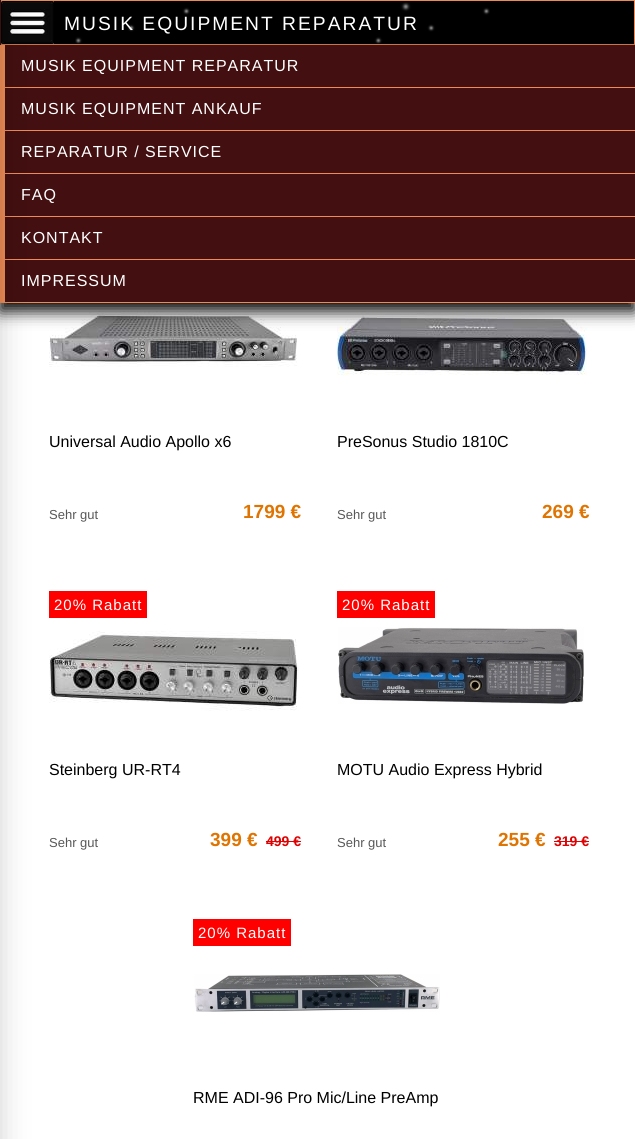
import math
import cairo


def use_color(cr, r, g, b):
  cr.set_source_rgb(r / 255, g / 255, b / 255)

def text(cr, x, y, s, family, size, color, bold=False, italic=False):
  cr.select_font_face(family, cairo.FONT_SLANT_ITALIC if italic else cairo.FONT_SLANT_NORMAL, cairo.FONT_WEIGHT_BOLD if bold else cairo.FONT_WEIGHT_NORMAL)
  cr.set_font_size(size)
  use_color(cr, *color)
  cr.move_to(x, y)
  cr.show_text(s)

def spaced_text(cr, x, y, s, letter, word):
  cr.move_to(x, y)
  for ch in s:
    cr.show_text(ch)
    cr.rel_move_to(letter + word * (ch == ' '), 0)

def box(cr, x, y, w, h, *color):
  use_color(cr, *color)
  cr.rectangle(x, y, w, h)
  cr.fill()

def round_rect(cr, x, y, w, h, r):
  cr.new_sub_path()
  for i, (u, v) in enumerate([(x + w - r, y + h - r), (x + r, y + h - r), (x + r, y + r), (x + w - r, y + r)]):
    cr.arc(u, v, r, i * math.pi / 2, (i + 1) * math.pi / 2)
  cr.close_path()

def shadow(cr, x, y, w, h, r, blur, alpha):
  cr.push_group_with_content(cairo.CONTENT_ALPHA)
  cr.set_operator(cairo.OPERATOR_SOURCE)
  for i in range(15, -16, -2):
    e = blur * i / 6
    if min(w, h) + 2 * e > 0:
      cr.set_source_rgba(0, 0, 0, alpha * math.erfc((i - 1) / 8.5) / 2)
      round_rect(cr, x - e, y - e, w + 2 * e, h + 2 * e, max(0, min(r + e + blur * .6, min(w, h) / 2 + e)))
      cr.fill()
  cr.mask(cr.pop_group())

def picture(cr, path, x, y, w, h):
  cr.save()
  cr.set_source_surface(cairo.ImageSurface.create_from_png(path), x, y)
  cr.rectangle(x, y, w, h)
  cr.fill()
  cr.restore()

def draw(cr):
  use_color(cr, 255, 255, 255)
  cr.paint()
  box(cr, 0, 0, 635, 1, 236, 139, 86)
  box(cr, 634, 0, 1, 45, 236, 139, 86)
  box(cr, 0, 44, 635, 1, 236, 139, 86)
  box(cr, 0, 0, 1, 45, 67, 15, 16)
  box(cr, 53, 1, 581, 43, 0, 0, 0)
  picture(cr, "img_02.png", 1, 1, 53, 43)
  picture(cr, "img_01.png", 75, 2, 415, 42)
  picture(cr, "img_03.png", 49, 311, 248, 56)
  picture(cr, "img_04.png", 337, 311, 250, 65)
  use_color(cr, 0, 0, 0)
  shadow(cr, 0, 53, 635, 258, 0, 8, 1)
  box(cr, 5, 45, 630, 257, 67, 15, 16)
  box(cr, 0, 87, 635, 1, 236, 139, 86)
  box(cr, 0, 45, 5, 43, 236, 139, 86)
  box(cr, 0, 130, 635, 1, 236, 139, 86)
  box(cr, 0, 88, 5, 43, 236, 139, 86)
  box(cr, 0, 173, 635, 1, 236, 139, 86)
  box(cr, 0, 131, 5, 43, 236, 139, 86)
  box(cr, 0, 216, 635, 1, 236, 139, 86)
  box(cr, 0, 174, 5, 43, 236, 139, 86)
  box(cr, 0, 259, 635, 1, 236, 139, 86)
  box(cr, 0, 217, 5, 43, 236, 139, 86)
  box(cr, 0, 302, 635, 1, 236, 139, 86)
  box(cr, 0, 260, 5, 43, 236, 139, 86)
  use_color(cr, 0, 0, 0)
  shadow(cr, -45, 10, 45, 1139, 0, 15, 0.18)
  box(cr, 49, 591, 98, 27, 255, 0, 0)
  picture(cr, "img_05.png", 49, 631, 250, 80)
  box(cr, 266, 841, 35, 1, 223, 1, 1)
  box(cr, 337, 591, 98, 27, 255, 0, 0)
  picture(cr, "img_06.png", 338, 627, 246, 77)
  box(cr, 554, 841, 35, 1, 223, 1, 1)
  box(cr, 193, 919, 98, 27, 255, 0, 0)
  picture(cr, "img_07.png", 194, 974, 246, 38)
  cr.select_font_face("Liberation Sans")
  cr.set_font_size(19.25)
  use_color(cr, 255, 255, 255)
  spaced_text(cr, 64, 30, "MUSIK EQUIPMENT REPARATUR", 2, 0)
  cr.set_font_size(16)
  spaced_text(cr, 21, 71, "MUSIK EQUIPMENT REPARATUR", 1, 0)
  spaced_text(cr, 21, 114, "MUSIK EQUIPMENT ANKAUF", 1, 0)
  spaced_text(cr, 21, 157, "REPARATUR / SERVICE", 1, 0)
  spaced_text(cr, 21, 200, "FAQ", 1, 0)
  spaced_text(cr, 21, 243, "KONTAKT", 1, 0)
  spaced_text(cr, 21, 286, "IMPRESSUM", 1, 0)
  text(cr, 49, 447, "Universal Audio Apollo x6", "Liberation Sans", 16, (0, 0, 0))
  text(cr, 49, 519, "Sehr gut", "Liberation Sans", 13, (88, 88, 88))
  text(cr, 243, 518, "1799 €", "Liberation Sans", 19, (223, 116, 1), bold=True)
  text(cr, 337, 447, "PreSonus Studio 1810C", "Liberation Sans", 16, (0, 0, 0))
  text(cr, 337, 519, "Sehr gut", "Liberation Sans", 13, (88, 88, 88))
  text(cr, 542, 518, "269 €", "Liberation Sans", 19, (223, 116, 1), bold=True)
  cr.select_font_face("Liberation Sans")
  cr.set_font_size(15)
  use_color(cr, 255, 255, 255)
  spaced_text(cr, 54, 610, "20% Rabatt", 1, 0)
  text(cr, 49, 775, "Steinberg UR-RT4", "Liberation Sans", 16, (0, 0, 0))
  text(cr, 49, 847, "Sehr gut", "Liberation Sans", 13, (88, 88, 88))
  text(cr, 210, 846, "399 €", "Liberation Sans", 19, (223, 116, 1), bold=True)
  text(cr, 266, 846, "499 €", "Liberation Sans", 14, (223, 1, 1), bold=True)
  cr.select_font_face("Liberation Sans")
  cr.set_font_size(15)
  use_color(cr, 255, 255, 255)
  spaced_text(cr, 342, 610, "20% Rabatt", 1, 0)
  text(cr, 337, 775, "MOTU Audio Express Hybrid", "Liberation Sans", 16, (0, 0, 0))
  text(cr, 337, 847, "Sehr gut", "Liberation Sans", 13, (88, 88, 88))
  text(cr, 498, 846, "255 €", "Liberation Sans", 19, (223, 116, 1), bold=True)
  text(cr, 554, 846, "319 €", "Liberation Sans", 14, (223, 1, 1), bold=True)
  cr.select_font_face("Liberation Sans")
  cr.set_font_size(15)
  use_color(cr, 255, 255, 255)
  spaced_text(cr, 198, 938, "20% Rabatt", 1, 0)
  text(cr, 193, 1103, "RME ADI-96 Pro Mic/Line PreAmp", "Liberation Sans", 16, (0, 0, 0))


surface = cairo.ImageSurface(cairo.FORMAT_RGB24, 635, 1139)
cr = cairo.Context(surface)
options = cairo.FontOptions()
options.set_hint_metrics(cairo.HINT_METRICS_OFF)
options.set_hint_style(cairo.HINT_STYLE_NONE)
cr.set_font_options(options)
cr.set_miter_limit(4)
draw(cr)
surface.write_to_png("out.png")
